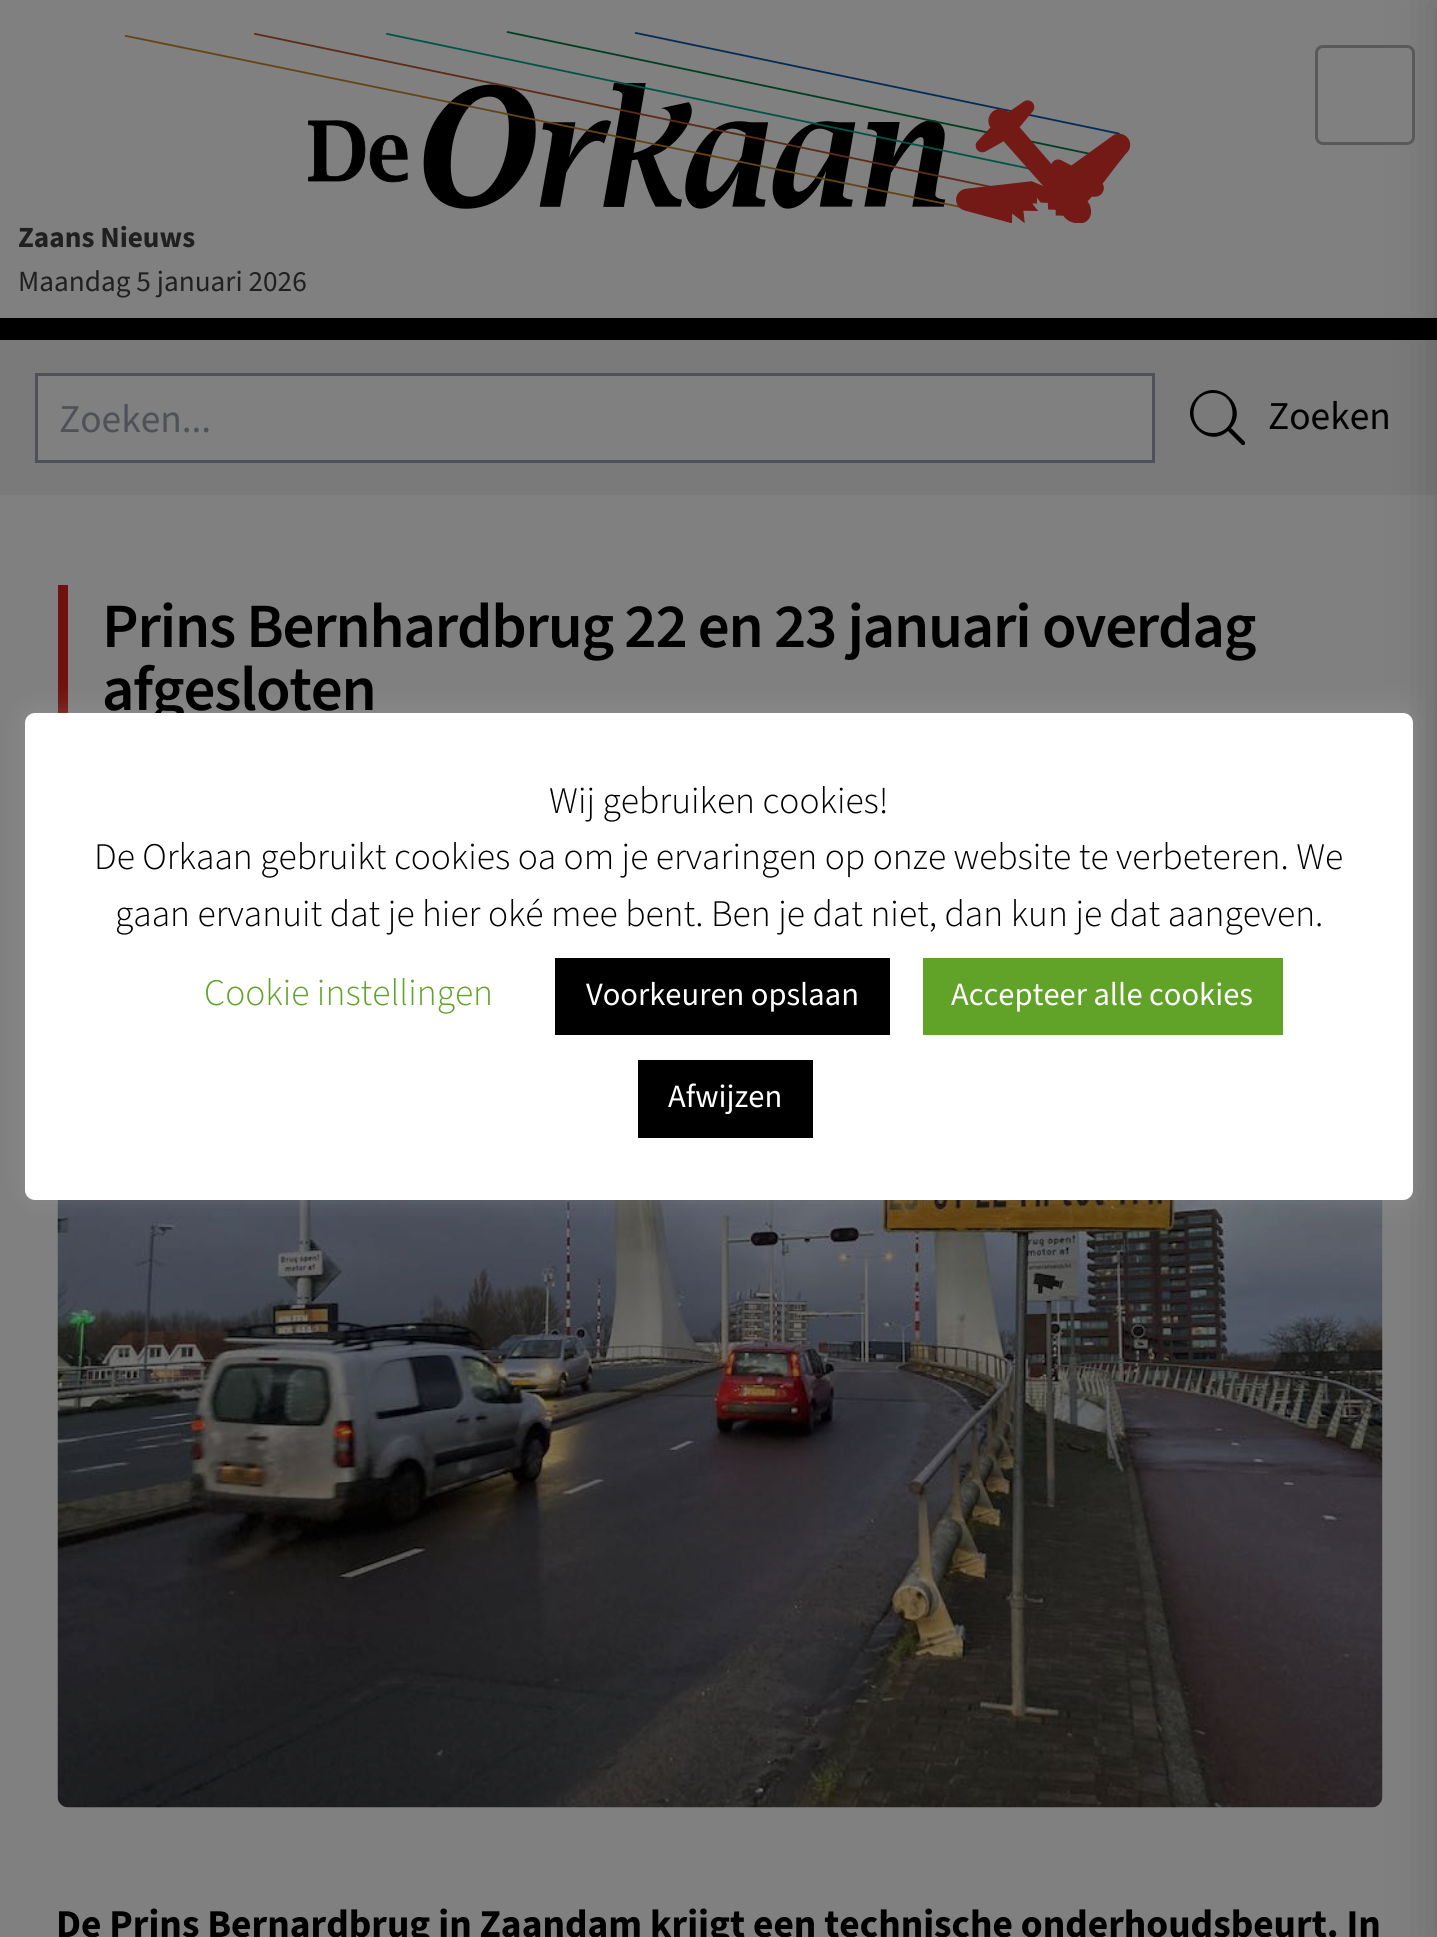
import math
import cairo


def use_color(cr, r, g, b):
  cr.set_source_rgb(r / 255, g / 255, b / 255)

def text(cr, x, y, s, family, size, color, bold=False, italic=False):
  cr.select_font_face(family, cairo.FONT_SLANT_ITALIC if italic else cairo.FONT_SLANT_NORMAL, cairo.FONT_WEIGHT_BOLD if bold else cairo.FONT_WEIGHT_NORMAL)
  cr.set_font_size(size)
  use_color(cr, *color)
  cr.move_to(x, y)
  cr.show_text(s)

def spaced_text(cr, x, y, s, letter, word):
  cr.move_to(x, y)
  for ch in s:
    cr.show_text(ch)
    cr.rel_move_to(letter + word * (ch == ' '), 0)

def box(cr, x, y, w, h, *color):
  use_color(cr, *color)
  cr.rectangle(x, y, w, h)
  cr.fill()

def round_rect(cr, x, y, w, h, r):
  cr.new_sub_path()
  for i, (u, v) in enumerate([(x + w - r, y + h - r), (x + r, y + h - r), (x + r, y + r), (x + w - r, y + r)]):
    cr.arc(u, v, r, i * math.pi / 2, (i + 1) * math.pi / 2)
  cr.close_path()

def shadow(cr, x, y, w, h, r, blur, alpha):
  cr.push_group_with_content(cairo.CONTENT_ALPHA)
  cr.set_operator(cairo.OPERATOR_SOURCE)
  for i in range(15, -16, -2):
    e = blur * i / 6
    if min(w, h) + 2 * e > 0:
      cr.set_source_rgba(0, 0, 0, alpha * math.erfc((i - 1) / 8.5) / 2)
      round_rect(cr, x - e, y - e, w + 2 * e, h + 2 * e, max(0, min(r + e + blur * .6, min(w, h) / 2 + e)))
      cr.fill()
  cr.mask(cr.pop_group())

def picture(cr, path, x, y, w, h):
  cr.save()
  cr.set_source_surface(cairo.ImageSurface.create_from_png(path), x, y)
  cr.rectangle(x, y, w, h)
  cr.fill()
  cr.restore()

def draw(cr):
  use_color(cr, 128, 128, 128)
  cr.paint()
  box(cr, 0, 318, 1437, 22, 0, 0, 0)
  picture(cr, "img_01.png", 125, 31, 1006, 192)
  box(cr, 0, 340, 1437, 155, 122, 122, 123)
  picture(cr, "img_02.png", 57, 1200, 1326, 608)
  use_color(cr, 0, 0, 0)
  shadow(cr, 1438, 0, 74, 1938, 0, 25, 0.2)
  use_color(cr, 128, 128, 128)
  round_rect(cr, 1316.5, 46.5, 97, 97, 6.5)
  cr.fill_preserve()
  use_color(cr, 89, 89, 89)
  cr.set_line_width(3)
  cr.stroke()
  use_color(cr, 128, 128, 128)
  cr.rectangle(36.5, 374.5, 1117, 87)
  cr.fill_preserve()
  use_color(cr, 78, 82, 88)
  cr.stroke()
  cr.save()
  cr.rectangle(1190, 390, 55, 55)
  cr.clip()
  use_color(cr, 0, 0, 0)
  cr.set_fill_rule(cairo.FILL_RULE_EVEN_ODD)
  cr.new_path()
  cr.move_to(1213, 433)
  cr.curve_to(1187, 433, 1187, 393, 1213, 393)
  cr.curve_to(1239, 393, 1239, 433, 1213, 433)
  cr.close_path()
  cr.move_to(1231, 428)
  cr.curve_to(1250, 407, 1218, 376, 1197, 397)
  cr.curve_to(1176, 418, 1207, 450, 1228, 431)
  cr.line_to(1243, 446)
  cr.line_to(1246, 443)
  cr.close_path()
  cr.fill()
  cr.restore()
  box(cr, 58, 585, 10, 128, 113, 17, 15)
  use_color(cr, 172, 171, 171)
  shadow(cr, 25, 710, 1388, 488, 10, 12.5, 0.3)
  text(cr, 18, 247, "Zaans Nieuws", "Source Sans 3", 29.25, (32, 32, 32), bold=True)
  text(cr, 18, 291, "Maandag 5 januari 2026", "Source Sans 3", 29.25, (32, 32, 32))
  text(cr, 59, 432, "Zoeken...", "Source Sans 3", 39.4, (78, 82, 88))
  text(cr, 1268, 429, "Zoeken", "Source Sans 3", 39.4, (0, 0, 0))
  cr.select_font_face("Source Sans 3 SemiBold")
  cr.set_font_size(63)
  spaced_text(cr, 102, 647, "Prins Bernhardbrug 22 en 23 januari overdag", -1.25, 0)
  spaced_text(cr, 102, 710, "afgesloten", -1.25, 0)
  text(cr, 56, 1937, "De Prins Bernardbrug in Zaandam krijgt een technische onderhoudsbeurt. In", "Source Sans 3", 39.4, (0, 0, 0), bold=True)
  use_color(cr, 255, 255, 255)
  round_rect(cr, 25, 713, 1388, 487, 10)
  cr.fill()
  text(cr, 549, 813, "Wij gebruiken cookies!", "Source Sans 3 Light", 37.5, (0, 0, 0))
  text(cr, 94, 869, "De Orkaan gebruikt cookies oa om je ervaringen op onze website te verbeteren. We", "Source Sans 3 Light", 37.5, (0, 0, 0))
  text(cr, 115, 926, "gaan ervanuit dat je hier oké mee bent. Ben je dat niet, dan kun je dat aangeven.", "Source Sans 3 Light", 37.5, (0, 0, 0))
  text(cr, 204, 1005, "Cookie instellingen", "Source Sans 3 Light", 37.5, (98, 163, 41))
  box(cr, 555, 958, 335, 77, 0, 0, 0)
  text(cr, 586, 1005, "Voorkeuren opslaan", "Source Sans 3", 32.5, (255, 255, 255))
  box(cr, 923, 958, 360, 77, 97, 162, 41)
  text(cr, 951, 1005, "Accepteer alle cookies", "Source Sans 3", 32.5, (255, 255, 255))
  box(cr, 638, 1060, 175, 78, 0, 0, 0)
  text(cr, 668, 1107, "Afwijzen", "Source Sans 3", 32.5, (255, 255, 255))


surface = cairo.ImageSurface(cairo.FORMAT_RGB24, 1437, 1937)
cr = cairo.Context(surface)
options = cairo.FontOptions()
options.set_hint_metrics(cairo.HINT_METRICS_OFF)
options.set_hint_style(cairo.HINT_STYLE_NONE)
cr.set_font_options(options)
cr.set_miter_limit(4)
draw(cr)
surface.write_to_png("out.png")
